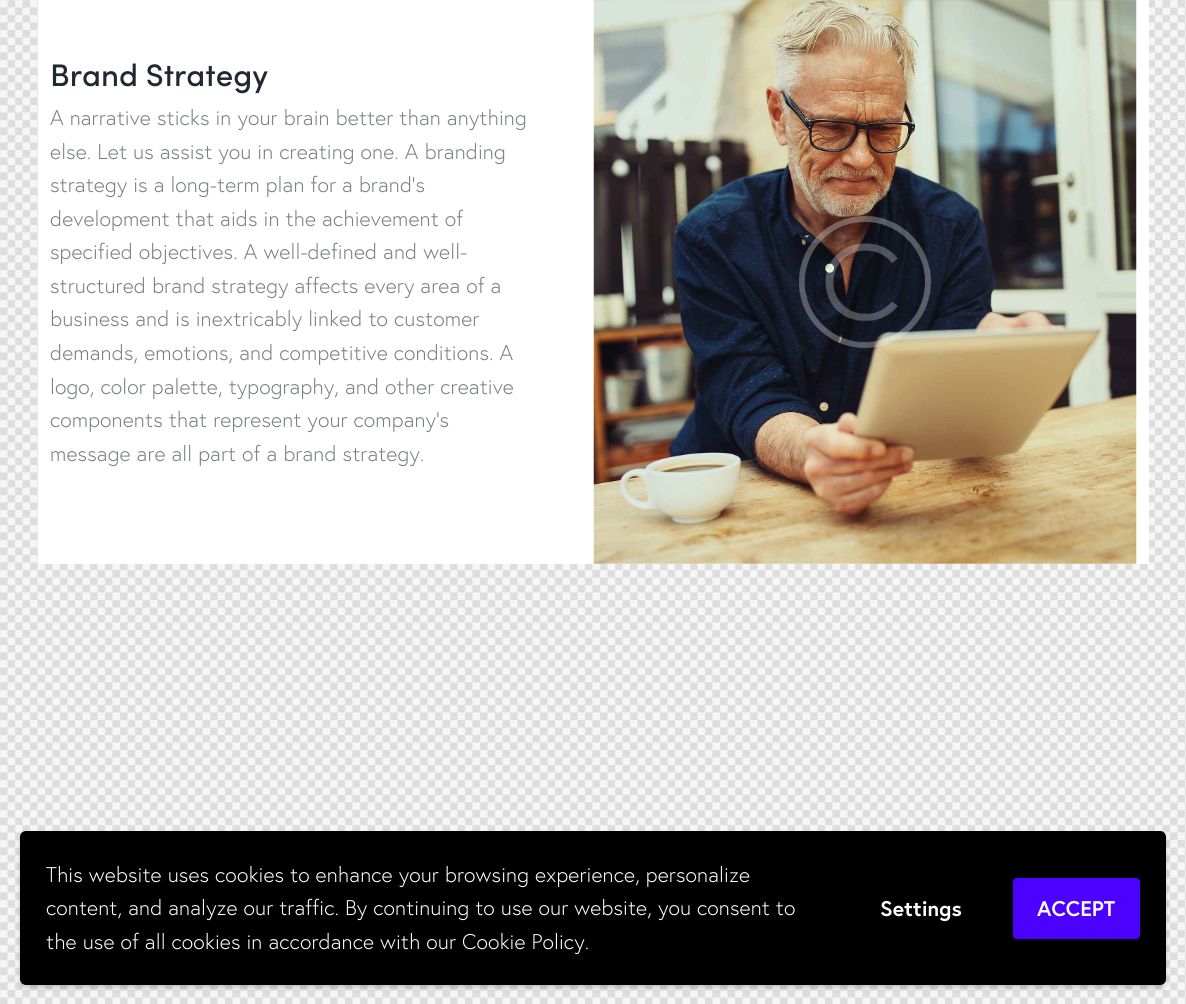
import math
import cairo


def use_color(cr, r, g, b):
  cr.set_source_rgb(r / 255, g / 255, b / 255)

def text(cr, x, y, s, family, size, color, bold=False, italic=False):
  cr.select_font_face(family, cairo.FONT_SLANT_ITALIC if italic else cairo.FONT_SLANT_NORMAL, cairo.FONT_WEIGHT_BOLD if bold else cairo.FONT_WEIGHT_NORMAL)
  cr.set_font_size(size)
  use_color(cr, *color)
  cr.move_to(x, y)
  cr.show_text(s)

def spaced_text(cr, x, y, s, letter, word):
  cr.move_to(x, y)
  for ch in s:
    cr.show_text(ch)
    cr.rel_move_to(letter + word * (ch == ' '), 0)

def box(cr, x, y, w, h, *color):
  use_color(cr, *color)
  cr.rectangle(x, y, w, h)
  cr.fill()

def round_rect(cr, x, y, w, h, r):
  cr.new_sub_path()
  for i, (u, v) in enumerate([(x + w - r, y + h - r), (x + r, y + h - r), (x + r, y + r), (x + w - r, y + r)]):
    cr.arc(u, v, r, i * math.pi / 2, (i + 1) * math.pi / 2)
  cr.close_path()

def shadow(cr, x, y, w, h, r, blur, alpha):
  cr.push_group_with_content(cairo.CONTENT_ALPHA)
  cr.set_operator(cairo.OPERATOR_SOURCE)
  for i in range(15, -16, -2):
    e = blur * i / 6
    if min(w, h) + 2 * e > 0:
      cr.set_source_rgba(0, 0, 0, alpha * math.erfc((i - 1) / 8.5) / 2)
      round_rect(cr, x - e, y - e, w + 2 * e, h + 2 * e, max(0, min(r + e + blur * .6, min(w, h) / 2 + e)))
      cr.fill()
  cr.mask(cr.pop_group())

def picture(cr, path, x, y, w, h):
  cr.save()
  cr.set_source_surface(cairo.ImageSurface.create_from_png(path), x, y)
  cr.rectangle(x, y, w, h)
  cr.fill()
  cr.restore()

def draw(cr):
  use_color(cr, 255, 255, 255)
  cr.paint()
  picture(cr, "img_01.png", 0, 0, 1186, 1004)
  box(cr, 38, 0, 1111, 564, 255, 255, 255)
  picture(cr, "img_02.png", 593, 0, 544, 564)
  use_color(cr, 0, 0, 0)
  shadow(cr, 20, 834, 1146, 154, 6, 2.5, 0.2)
  use_color(cr, 0, 0, 0)
  round_rect(cr, 20, 831, 1146, 154, 6)
  cr.fill()
  use_color(cr, 76, 0, 255)
  round_rect(cr, 1013.5, 878.5, 126, 60, 3.5)
  cr.fill_preserve()
  cr.set_line_width(1)
  cr.stroke()
  text(cr, 50, 86, "Brand Strategy", "Sofia Medium", 31.25, (34, 39, 51))
  cr.select_font_face("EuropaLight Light")
  cr.set_font_size(21.25)
  use_color(cr, 122, 126, 131)
  spaced_text(cr, 50, 125, "A narrative sticks in your brain better than anything", 0.12, 0)
  spaced_text(cr, 50, 159, "else. Let us assist you in creating one. A branding", 0.12, 0)
  spaced_text(cr, 50, 192, "strategy is a long-term plan for a brand’s", 0.12, 0)
  spaced_text(cr, 50, 226, "development that aids in the achievement of", 0.12, 0)
  spaced_text(cr, 50, 259, "specified objectives. A well-defined and well-", 0.12, 0)
  spaced_text(cr, 50, 293, "structured brand strategy affects every area of a", 0.12, 0)
  spaced_text(cr, 50, 326, "business and is inextricably linked to customer", 0.12, 0)
  spaced_text(cr, 50, 360, "demands, emotions, and competitive conditions. A", 0.12, 0)
  spaced_text(cr, 50, 394, "logo, color palette, typography, and other creative", 0.12, 0)
  spaced_text(cr, 50, 427, "components that represent your company’s", 0.12, 0)
  spaced_text(cr, 50, 461, "message are all part of a brand strategy.", 0.12, 0)
  use_color(cr, 255, 255, 255)
  spaced_text(cr, 46, 882, "This website uses cookies to enhance your browsing experience, personalize", 0.12, 0)
  spaced_text(cr, 46, 915, "content, and analyze our traffic. By continuing to use our website, you consent to", 0.12, 0)
  spaced_text(cr, 46, 949, "the use of all cookies in accordance with our Cookie Policy.", 0.12, 0)
  text(cr, 880, 916, "Settings", "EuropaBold", 21.25, (255, 255, 255), bold=True)
  text(cr, 1037, 916, "ACCEPT", "EuropaBold", 21.25, (255, 255, 255), bold=True)


surface = cairo.ImageSurface(cairo.FORMAT_RGB24, 1186, 1004)
cr = cairo.Context(surface)
options = cairo.FontOptions()
options.set_hint_metrics(cairo.HINT_METRICS_OFF)
options.set_hint_style(cairo.HINT_STYLE_NONE)
cr.set_font_options(options)
cr.set_miter_limit(4)
draw(cr)
surface.write_to_png("out.png")
